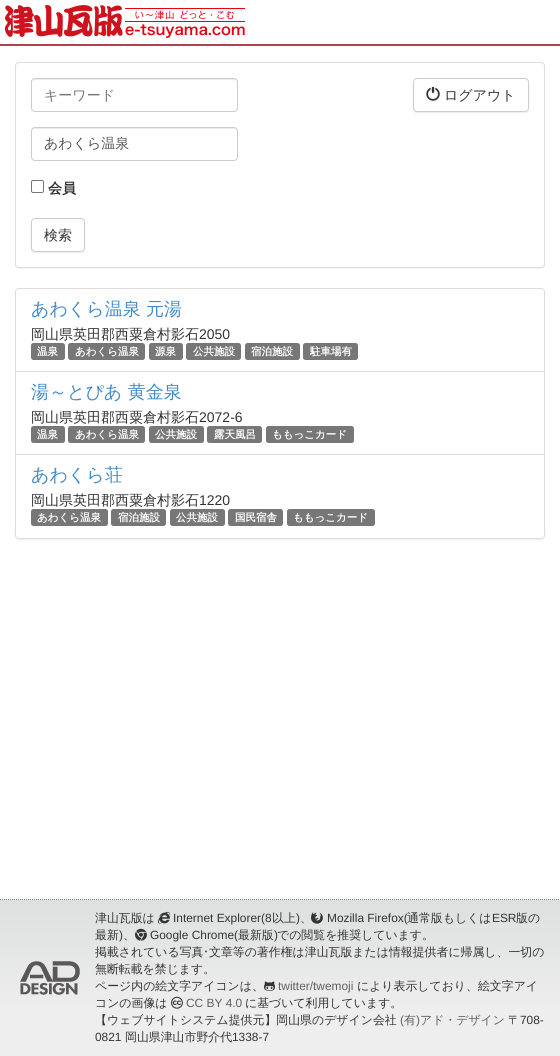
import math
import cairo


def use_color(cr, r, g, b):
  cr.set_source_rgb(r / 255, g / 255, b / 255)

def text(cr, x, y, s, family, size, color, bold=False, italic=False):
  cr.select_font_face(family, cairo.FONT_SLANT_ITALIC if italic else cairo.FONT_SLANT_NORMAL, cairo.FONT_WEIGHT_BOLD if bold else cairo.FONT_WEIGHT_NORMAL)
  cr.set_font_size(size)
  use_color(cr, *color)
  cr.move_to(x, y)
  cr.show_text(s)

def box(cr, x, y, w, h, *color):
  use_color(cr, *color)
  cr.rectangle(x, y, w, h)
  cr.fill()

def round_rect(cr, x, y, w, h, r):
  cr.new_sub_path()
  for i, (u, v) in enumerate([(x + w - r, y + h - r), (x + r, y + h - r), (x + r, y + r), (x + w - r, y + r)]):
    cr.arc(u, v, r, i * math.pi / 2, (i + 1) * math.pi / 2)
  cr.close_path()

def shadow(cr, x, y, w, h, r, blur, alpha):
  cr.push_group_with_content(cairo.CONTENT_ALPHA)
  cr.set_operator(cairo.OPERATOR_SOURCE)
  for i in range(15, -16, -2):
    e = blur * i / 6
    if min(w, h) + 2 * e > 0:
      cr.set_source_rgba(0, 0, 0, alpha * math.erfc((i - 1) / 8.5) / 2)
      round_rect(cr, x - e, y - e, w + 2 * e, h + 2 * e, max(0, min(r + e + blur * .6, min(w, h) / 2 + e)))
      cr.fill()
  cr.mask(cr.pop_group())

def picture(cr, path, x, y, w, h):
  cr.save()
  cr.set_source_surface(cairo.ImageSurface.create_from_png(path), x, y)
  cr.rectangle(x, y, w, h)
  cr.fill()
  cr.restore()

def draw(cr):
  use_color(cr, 255, 255, 255)
  cr.paint()
  box(cr, 0, 44, 560, 2, 181, 64, 75)
  picture(cr, "img_01.png", 5, 5, 240, 33)
  use_color(cr, 0, 0, 0)
  shadow(cr, 15, 63, 530, 206, 4, 0.5, 0.05)
  use_color(cr, 255, 255, 255)
  round_rect(cr, 15.5, 62.5, 529, 205, 3.5)
  cr.fill_preserve()
  use_color(cr, 221, 221, 221)
  cr.set_line_width(1)
  cr.stroke()
  use_color(cr, 236, 236, 236)
  cr.new_path()
  cr.move_to(35, 80)
  cr.line_to(234, 80)
  cr.curve_to(236, 80, 237, 81, 237, 83)
  cr.curve_to(237, 81, 236, 79, 234, 79)
  cr.line_to(35, 79)
  cr.curve_to(33, 79, 32, 81, 32, 83)
  cr.curve_to(32, 81, 33, 80, 35, 80)
  cr.close_path()
  cr.fill()
  round_rect(cr, 31.5, 78.5, 206, 33, 3.5)
  use_color(cr, 204, 204, 204)
  cr.stroke()
  use_color(cr, 236, 236, 236)
  cr.new_path()
  cr.move_to(35, 129)
  cr.line_to(234, 129)
  cr.curve_to(236, 129, 237, 130, 237, 132)
  cr.curve_to(237, 130, 236, 128, 234, 128)
  cr.line_to(35, 128)
  cr.curve_to(33, 128, 32, 130, 32, 132)
  cr.curve_to(32, 130, 33, 129, 35, 129)
  cr.close_path()
  cr.fill()
  round_rect(cr, 31.5, 127.5, 206, 33, 3.5)
  use_color(cr, 204, 204, 204)
  cr.stroke()
  round_rect(cr, 31.5, 180.5, 12, 12, 1.5)
  use_color(cr, 118, 118, 118)
  cr.stroke()
  use_color(cr, 0, 0, 0)
  shadow(cr, 31, 219, 54, 34, 4, 0.5, 0.07)
  use_color(cr, 255, 255, 255)
  round_rect(cr, 31.5, 218.5, 53, 33, 3.5)
  cr.fill_preserve()
  use_color(cr, 204, 204, 204)
  cr.stroke()
  use_color(cr, 0, 0, 0)
  shadow(cr, 413, 79, 116, 34, 4, 0.5, 0.07)
  use_color(cr, 255, 255, 255)
  round_rect(cr, 413.5, 78.5, 115, 33, 3.5)
  cr.fill_preserve()
  use_color(cr, 204, 204, 204)
  cr.stroke()
  picture(cr, "img_02.png", 426, 87, 14, 14)
  cr.save()
  cr.set_fill_rule(cairo.FILL_RULE_EVEN_ODD)
  cr.new_path()
  cr.move_to(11, 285)
  cr.line_to(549, 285)
  cr.line_to(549, 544)
  cr.line_to(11, 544)
  cr.close_path()
  cr.move_to(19, 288)
  cr.line_to(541, 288)
  cr.curve_to(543, 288, 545, 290, 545, 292)
  cr.line_to(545, 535)
  cr.curve_to(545, 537, 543, 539, 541, 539)
  cr.line_to(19, 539)
  cr.curve_to(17, 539, 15, 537, 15, 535)
  cr.line_to(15, 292)
  cr.curve_to(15, 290, 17, 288, 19, 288)
  cr.close_path()
  cr.clip()
  use_color(cr, 0, 0, 0)
  shadow(cr, 15, 289, 530, 251, 4, 1, 0.07)
  cr.restore()
  cr.new_path()
  cr.move_to(19, 288.5)
  cr.line_to(541, 288.5)
  cr.curve_to(543, 288.5, 544.5, 290, 544.5, 292)
  cr.line_to(544.5, 371.5)
  cr.line_to(15.5, 371.5)
  cr.line_to(15.5, 292)
  cr.curve_to(15.5, 290, 17, 288.5, 19, 288.5)
  cr.close_path()
  use_color(cr, 221, 221, 221)
  cr.stroke()
  use_color(cr, 119, 119, 119)
  round_rect(cr, 31, 343, 34, 17, 2.5)
  cr.fill()
  round_rect(cr, 68, 343, 77, 17, 2.5)
  cr.fill()
  round_rect(cr, 149, 343, 34, 17, 2.5)
  cr.fill()
  round_rect(cr, 186, 343, 55, 17, 2.5)
  cr.fill()
  round_rect(cr, 245, 343, 55, 17, 2.5)
  cr.fill()
  round_rect(cr, 303, 343, 55, 17, 2.5)
  cr.fill()
  cr.rectangle(15.5, 371.5, 529, 83)
  use_color(cr, 221, 221, 221)
  cr.stroke()
  use_color(cr, 119, 119, 119)
  round_rect(cr, 31, 426, 34, 17, 2.5)
  cr.fill()
  round_rect(cr, 68, 426, 77, 17, 2.5)
  cr.fill()
  round_rect(cr, 149, 426, 55, 17, 2.5)
  cr.fill()
  round_rect(cr, 207, 426, 55, 17, 2.5)
  cr.fill()
  round_rect(cr, 266, 426, 88, 17, 2.5)
  cr.fill()
  use_color(cr, 255, 255, 255)
  cr.new_path()
  cr.move_to(15.5, 454.5)
  cr.line_to(544.5, 454.5)
  cr.line_to(544.5, 535)
  cr.curve_to(544.5, 537, 543, 538.5, 541, 538.5)
  cr.line_to(19, 538.5)
  cr.curve_to(17, 538.5, 15.5, 537, 15.5, 535)
  cr.close_path()
  cr.fill_preserve()
  use_color(cr, 221, 221, 221)
  cr.stroke()
  use_color(cr, 119, 119, 119)
  round_rect(cr, 31, 509, 77, 17, 2.5)
  cr.fill()
  round_rect(cr, 111, 509, 55, 17, 2.5)
  cr.fill()
  round_rect(cr, 170, 509, 55, 17, 2.5)
  cr.fill()
  round_rect(cr, 228, 509, 55, 17, 2.5)
  cr.fill()
  round_rect(cr, 287, 509, 88, 17, 2.5)
  cr.fill()
  box(cr, 1, 899, 559, 1, 238, 238, 238)
  cr.new_path()
  cr.move_to(0, 899.5)
  cr.line_to(560, 899.5)
  use_color(cr, 119, 119, 119)
  cr.set_dash([1, 1])
  cr.stroke()
  gradient = cairo.LinearGradient(280, 900, 280, 1056)
  gradient.add_color_stop_rgba(0, 0.871, 0.875, 0.875, 1)
  gradient.add_color_stop_rgba(0.7, 0.933, 0.933, 0.937, 1)
  cr.set_source(gradient)
  cr.rectangle(0, 900, 560, 156)
  cr.fill()
  picture(cr, "img_03.png", 20, 961, 60, 34)
  picture(cr, "img_04.png", 158, 911, 12, 13)
  picture(cr, "img_05.png", 311, 912, 12, 12)
  picture(cr, "img_06.png", 135, 928, 12, 13)
  picture(cr, "img_07.png", 264, 981, 11, 10)
  picture(cr, "img_08.png", 171, 996, 12, 13)
  text(cr, 44, 100, "キーワード", "WenQuanYi Zen Hei Medium", 14, (119, 119, 119))
  text(cr, 44, 148, "あわくら温泉", "WenQuanYi Zen Hei Medium", 14, (85, 85, 85))
  text(cr, 48, 193, "会員", "WenQuanYi Zen Hei", 14, (51, 51, 51), bold=True)
  text(cr, 44, 240, "検索", "WenQuanYi Zen Hei Medium", 14, (51, 51, 51))
  text(cr, 444, 100, "ログアウト", "WenQuanYi Zen Hei Medium", 14, (51, 51, 51))
  text(cr, 31, 315, "あわくら温泉 元湯", "WenQuanYi Zen Hei Medium", 18, (66, 139, 202))
  text(cr, 31, 339, "岡山県英田郡西粟倉村影石", "WenQuanYi Zen Hei Medium", 14, (51, 51, 51))
  text(cr, 199, 339, "2050", "Liberation Sans", 14, (51, 51, 51))
  text(cr, 37, 355, "温泉", "WenQuanYi Zen Hei", 10.5, (255, 255, 255), bold=True)
  text(cr, 75, 355, "あわくら温泉", "WenQuanYi Zen Hei", 10.5, (255, 255, 255), bold=True)
  text(cr, 155, 355, "源泉", "WenQuanYi Zen Hei", 10.5, (255, 255, 255), bold=True)
  text(cr, 193, 355, "公共施設", "WenQuanYi Zen Hei", 10.5, (255, 255, 255), bold=True)
  text(cr, 251, 355, "宿泊施設", "WenQuanYi Zen Hei", 10.5, (255, 255, 255), bold=True)
  text(cr, 310, 355, "駐車場有", "WenQuanYi Zen Hei", 10.5, (255, 255, 255), bold=True)
  text(cr, 31, 398, "湯～とぴあ 黄金泉", "WenQuanYi Zen Hei Medium", 18, (66, 139, 202))
  text(cr, 31, 422, "岡山県英田郡西粟倉村影石", "WenQuanYi Zen Hei Medium", 14, (51, 51, 51))
  text(cr, 199, 422, "2072-6", "Liberation Sans", 14, (51, 51, 51))
  text(cr, 37, 438, "温泉", "WenQuanYi Zen Hei", 10.5, (255, 255, 255), bold=True)
  text(cr, 75, 438, "あわくら温泉", "WenQuanYi Zen Hei", 10.5, (255, 255, 255), bold=True)
  text(cr, 155, 438, "公共施設", "WenQuanYi Zen Hei", 10.5, (255, 255, 255), bold=True)
  text(cr, 214, 438, "露天風呂", "WenQuanYi Zen Hei", 10.5, (255, 255, 255), bold=True)
  text(cr, 272, 438, "ももっこカード", "WenQuanYi Zen Hei", 10.5, (255, 255, 255), bold=True)
  text(cr, 31, 481, "あわくら荘", "WenQuanYi Zen Hei Medium", 18, (66, 139, 202))
  text(cr, 31, 505, "岡山県英田郡西粟倉村影石", "WenQuanYi Zen Hei Medium", 14, (51, 51, 51))
  text(cr, 199, 505, "1220", "Liberation Sans", 14, (51, 51, 51))
  text(cr, 37, 521, "あわくら温泉", "WenQuanYi Zen Hei", 10.5, (255, 255, 255), bold=True)
  text(cr, 118, 521, "宿泊施設", "WenQuanYi Zen Hei", 10.5, (255, 255, 255), bold=True)
  text(cr, 176, 521, "公共施設", "WenQuanYi Zen Hei", 10.5, (255, 255, 255), bold=True)
  text(cr, 235, 521, "国民宿舎", "WenQuanYi Zen Hei", 10.5, (255, 255, 255), bold=True)
  text(cr, 293, 521, "ももっこカード", "WenQuanYi Zen Hei", 10.5, (255, 255, 255), bold=True)
  text(cr, 95, 922, "津山瓦版は", "WenQuanYi Zen Hei Medium", 11.9, (51, 51, 51))
  text(cr, 173, 922, "Internet Explorer(8", "Liberation Sans", 11.9, (51, 51, 51))
  text(cr, 272, 922, "以上", "WenQuanYi Zen Hei Medium", 11.9, (51, 51, 51))
  text(cr, 296, 922, ")", "Liberation Sans", 11.9, (51, 51, 51))
  text(cr, 300, 922, "、", "WenQuanYi Zen Hei Medium", 11.9, (51, 51, 51))
  text(cr, 327, 922, "Mozilla Firefox(", "Liberation Sans", 11.9, (51, 51, 51))
  text(cr, 407, 922, "通常版もしくは", "WenQuanYi Zen Hei Medium", 11.9, (51, 51, 51))
  text(cr, 492, 922, "ESR", "Liberation Sans", 11.9, (51, 51, 51))
  text(cr, 516, 922, "版の", "WenQuanYi Zen Hei Medium", 11.9, (51, 51, 51))
  text(cr, 95, 939, "最新", "WenQuanYi Zen Hei Medium", 11.9, (51, 51, 51))
  text(cr, 119, 939, ")", "Liberation Sans", 11.9, (51, 51, 51))
  text(cr, 123, 939, "、", "WenQuanYi Zen Hei Medium", 11.9, (51, 51, 51))
  text(cr, 150, 939, "Google Chrome(", "Liberation Sans", 11.9, (51, 51, 51))
  text(cr, 238, 939, "最新版", "WenQuanYi Zen Hei Medium", 11.9, (51, 51, 51))
  text(cr, 274, 939, ")", "Liberation Sans", 11.9, (51, 51, 51))
  text(cr, 277, 939, "での閲覧を推奨しています。", "WenQuanYi Zen Hei Medium", 11.9, (51, 51, 51))
  text(cr, 95, 956, "掲載されている写真", "WenQuanYi Zen Hei Medium", 11.9, (51, 51, 51))
  text(cr, 203, 956, "･", "IPAPGothic", 11.9, (51, 51, 51))
  text(cr, 209, 956, "文章等の著作権は津山瓦版または情報提供者に帰属し、一切の", "WenQuanYi Zen Hei Medium", 11.9, (51, 51, 51))
  text(cr, 95, 973, "無断転載を禁じます。", "WenQuanYi Zen Hei Medium", 11.9, (51, 51, 51))
  text(cr, 95, 990, "ページ内の絵文字アイコンは、", "WenQuanYi Zen Hei Medium", 11.9, (51, 51, 51))
  text(cr, 278, 990, "twitter/twemoji", "Liberation Sans", 11.9, (96, 96, 96))
  text(cr, 357, 990, "により表示しており、絵文字アイ", "WenQuanYi Zen Hei Medium", 11.9, (51, 51, 51))
  text(cr, 95, 1007, "コンの画像は", "WenQuanYi Zen Hei Medium", 11.9, (51, 51, 51))
  text(cr, 186, 1007, "CC BY 4.0", "Liberation Sans", 11.9, (96, 96, 96))
  text(cr, 245, 1007, "に基づいて利用しています。", "WenQuanYi Zen Hei Medium", 11.9, (51, 51, 51))
  text(cr, 95, 1024, "【ウェブサイトシステム提供元】岡山県のデザイン会社", "WenQuanYi Zen Hei Medium", 11.9, (51, 51, 51))
  text(cr, 400, 1024, "(", "Liberation Sans", 11.9, (96, 96, 96))
  text(cr, 404, 1024, "有", "WenQuanYi Zen Hei Medium", 11.9, (96, 96, 96))
  text(cr, 416, 1024, ")", "Liberation Sans", 11.9, (96, 96, 96))
  text(cr, 420, 1024, "アド・デザイン", "WenQuanYi Zen Hei Medium", 11.9, (96, 96, 96))
  text(cr, 508, 1024, "〒", "WenQuanYi Zen Hei Medium", 11.9, (51, 51, 51))
  text(cr, 520, 1024, "708-", "Liberation Sans", 11.9, (51, 51, 51))
  text(cr, 95, 1041, "0821", "Liberation Sans", 11.9, (51, 51, 51))
  text(cr, 125, 1041, "岡山県津山市野介代", "WenQuanYi Zen Hei Medium", 11.9, (51, 51, 51))
  text(cr, 232, 1041, "1338-7", "Liberation Sans", 11.9, (51, 51, 51))


surface = cairo.ImageSurface(cairo.FORMAT_RGB24, 560, 1056)
cr = cairo.Context(surface)
options = cairo.FontOptions()
options.set_hint_metrics(cairo.HINT_METRICS_OFF)
options.set_hint_style(cairo.HINT_STYLE_NONE)
cr.set_font_options(options)
cr.set_miter_limit(4)
draw(cr)
surface.write_to_png("out.png")
